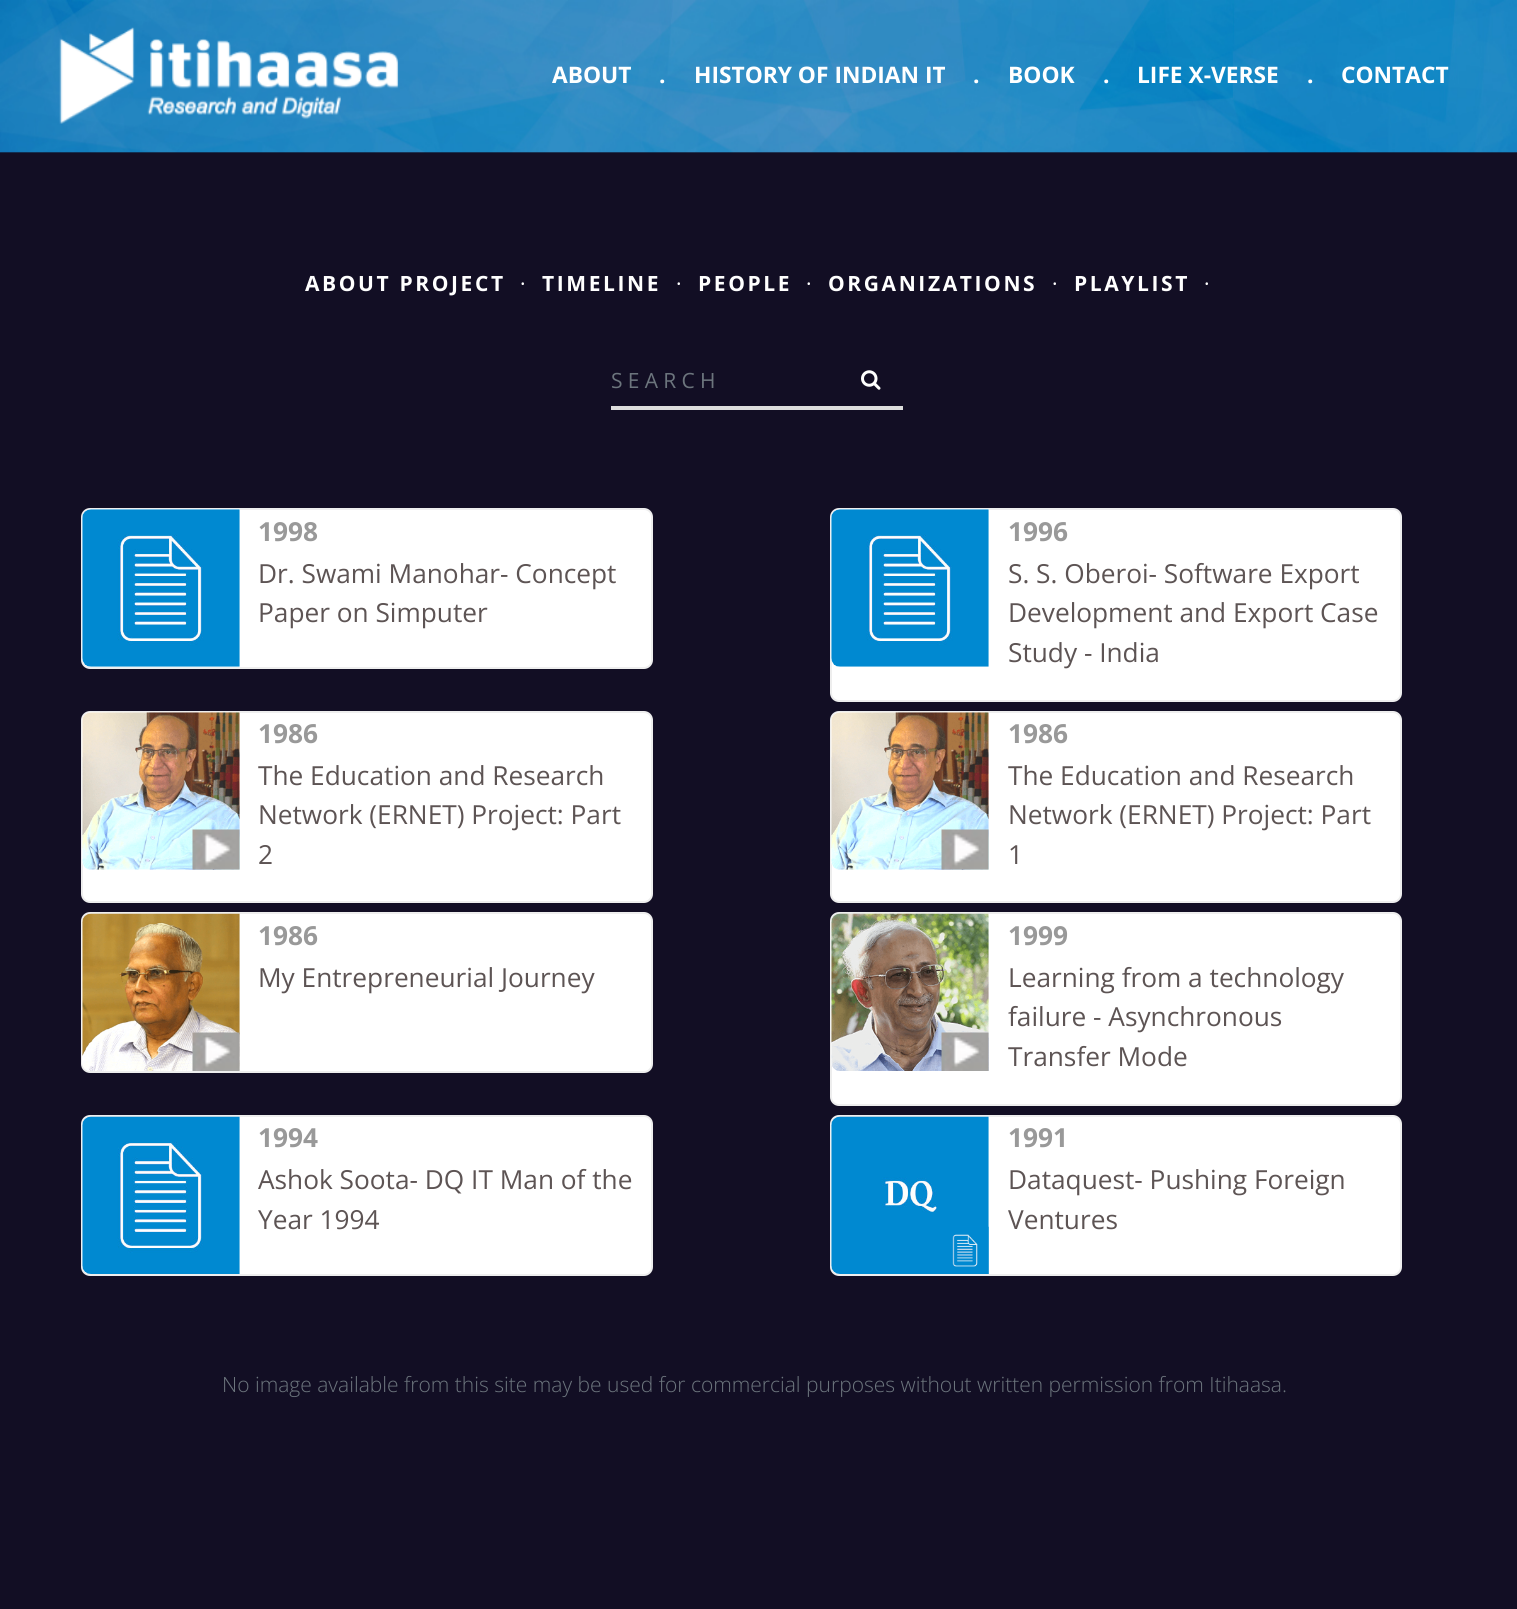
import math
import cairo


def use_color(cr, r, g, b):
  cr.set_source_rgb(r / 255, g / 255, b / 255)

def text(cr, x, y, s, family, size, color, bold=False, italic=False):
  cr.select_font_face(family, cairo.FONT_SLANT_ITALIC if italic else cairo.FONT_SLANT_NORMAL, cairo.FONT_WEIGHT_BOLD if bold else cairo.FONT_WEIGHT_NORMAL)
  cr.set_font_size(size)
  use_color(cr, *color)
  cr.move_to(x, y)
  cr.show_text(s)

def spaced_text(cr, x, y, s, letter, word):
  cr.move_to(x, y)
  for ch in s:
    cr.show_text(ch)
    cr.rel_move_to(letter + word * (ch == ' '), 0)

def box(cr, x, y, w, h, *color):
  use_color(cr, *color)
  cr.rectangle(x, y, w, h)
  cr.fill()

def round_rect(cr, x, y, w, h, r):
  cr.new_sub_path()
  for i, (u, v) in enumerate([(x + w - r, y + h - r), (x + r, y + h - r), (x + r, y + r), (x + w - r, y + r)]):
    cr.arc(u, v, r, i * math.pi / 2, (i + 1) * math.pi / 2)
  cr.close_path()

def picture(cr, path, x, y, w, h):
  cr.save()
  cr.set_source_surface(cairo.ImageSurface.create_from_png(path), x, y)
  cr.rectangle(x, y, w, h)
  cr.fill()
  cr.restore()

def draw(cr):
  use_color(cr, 18, 14, 36)
  cr.paint()
  picture(cr, "img_01.png", 0, 0, 1517, 153)
  picture(cr, "img_02.png", 59, 27, 340, 97)
  box(cr, 611, 406, 292, 4, 221, 221, 221)
  picture(cr, "img_03.png", 861, 370, 20, 20)
  use_color(cr, 255, 255, 255)
  round_rect(cr, 82, 509, 570, 159, 8)
  cr.fill_preserve()
  use_color(cr, 238, 238, 238)
  cr.stroke()
  use_color(cr, 255, 255, 255)
  cr.new_path()
  cr.move_to(91, 509)
  cr.line_to(240, 509)
  cr.line_to(240, 667)
  cr.line_to(91, 667)
  cr.curve_to(86, 667, 82, 663, 82, 658)
  cr.line_to(82, 518)
  cr.curve_to(82, 513, 86, 509, 91, 509)
  cr.close_path()
  cr.fill()
  picture(cr, "img_04.png", 82, 509, 158, 158)
  round_rect(cr, 831, 509, 570, 192, 8)
  cr.fill_preserve()
  use_color(cr, 238, 238, 238)
  cr.stroke()
  use_color(cr, 255, 255, 255)
  cr.new_path()
  cr.move_to(840, 509)
  cr.line_to(989, 509)
  cr.line_to(989, 667)
  cr.line_to(840, 667)
  cr.curve_to(835, 667, 831, 663, 831, 658)
  cr.line_to(831, 518)
  cr.curve_to(831, 513, 835, 509, 840, 509)
  cr.close_path()
  cr.fill()
  picture(cr, "img_05.png", 831, 509, 158, 158)
  round_rect(cr, 82, 712, 570, 190, 8)
  cr.fill_preserve()
  use_color(cr, 238, 238, 238)
  cr.stroke()
  use_color(cr, 255, 255, 255)
  cr.new_path()
  cr.move_to(91, 712)
  cr.line_to(240, 712)
  cr.line_to(240, 870)
  cr.line_to(91, 870)
  cr.curve_to(86, 870, 82, 866, 82, 861)
  cr.line_to(82, 721)
  cr.curve_to(82, 716, 86, 712, 91, 712)
  cr.close_path()
  cr.fill()
  picture(cr, "img_06.png", 82, 712, 158, 158)
  picture(cr, "img_07.png", 192, 829, 48, 41)
  round_rect(cr, 831, 712, 570, 190, 8)
  cr.fill_preserve()
  use_color(cr, 238, 238, 238)
  cr.stroke()
  use_color(cr, 255, 255, 255)
  cr.new_path()
  cr.move_to(840, 712)
  cr.line_to(989, 712)
  cr.line_to(989, 870)
  cr.line_to(840, 870)
  cr.curve_to(835, 870, 831, 866, 831, 861)
  cr.line_to(831, 721)
  cr.curve_to(831, 716, 835, 712, 840, 712)
  cr.close_path()
  cr.fill()
  picture(cr, "img_08.png", 831, 712, 158, 158)
  picture(cr, "img_09.png", 941, 829, 48, 41)
  round_rect(cr, 82, 913, 570, 159, 8)
  cr.fill_preserve()
  use_color(cr, 238, 238, 238)
  cr.stroke()
  use_color(cr, 255, 255, 255)
  cr.new_path()
  cr.move_to(91, 914)
  cr.line_to(240, 914)
  cr.line_to(240, 1071)
  cr.line_to(91, 1071)
  cr.curve_to(86, 1071, 82, 1067, 82, 1062)
  cr.line_to(82, 923)
  cr.curve_to(82, 918, 86, 914, 91, 914)
  cr.close_path()
  cr.fill()
  picture(cr, "img_10.png", 82, 913, 158, 158)
  picture(cr, "img_11.png", 192, 1032, 48, 39)
  round_rect(cr, 831, 913, 570, 192, 8)
  cr.fill_preserve()
  use_color(cr, 238, 238, 238)
  cr.stroke()
  use_color(cr, 255, 255, 255)
  cr.new_path()
  cr.move_to(840, 914)
  cr.line_to(989, 914)
  cr.line_to(989, 1071)
  cr.line_to(840, 1071)
  cr.curve_to(835, 1071, 831, 1067, 831, 1062)
  cr.line_to(831, 923)
  cr.curve_to(831, 918, 835, 914, 840, 914)
  cr.close_path()
  cr.fill()
  picture(cr, "img_12.png", 831, 913, 158, 158)
  picture(cr, "img_13.png", 941, 1032, 48, 39)
  round_rect(cr, 82, 1116, 570, 159, 8)
  cr.fill_preserve()
  use_color(cr, 238, 238, 238)
  cr.stroke()
  use_color(cr, 255, 255, 255)
  cr.new_path()
  cr.move_to(91, 1117)
  cr.line_to(240, 1117)
  cr.line_to(240, 1274)
  cr.line_to(91, 1274)
  cr.curve_to(86, 1274, 82, 1270, 82, 1265)
  cr.line_to(82, 1126)
  cr.curve_to(82, 1121, 86, 1117, 91, 1117)
  cr.close_path()
  cr.fill()
  picture(cr, "img_14.png", 82, 1116, 158, 158)
  round_rect(cr, 831, 1116, 570, 159, 8)
  cr.fill_preserve()
  use_color(cr, 238, 238, 238)
  cr.stroke()
  use_color(cr, 255, 255, 255)
  cr.new_path()
  cr.move_to(840, 1117)
  cr.line_to(989, 1117)
  cr.line_to(989, 1274)
  cr.line_to(840, 1274)
  cr.curve_to(835, 1274, 831, 1270, 831, 1265)
  cr.line_to(831, 1126)
  cr.curve_to(831, 1121, 835, 1117, 840, 1117)
  cr.close_path()
  cr.fill()
  picture(cr, "img_15.png", 831, 1116, 158, 158)
  picture(cr, "img_16.png", 952, 1226, 37, 48)
  text(cr, 552, 83, "ABOUT", "Open Sans", 22.75, (255, 255, 255), bold=True)
  text(cr, 659, 83, ".", "Open Sans", 22.75, (255, 255, 255), bold=True)
  text(cr, 694, 83, "HISTORY OF INDIAN IT", "Open Sans", 22.75, (255, 255, 255), bold=True)
  text(cr, 973, 83, ".", "Open Sans", 22.75, (255, 255, 255), bold=True)
  text(cr, 1008, 83, "BOOK", "Open Sans", 22.75, (255, 255, 255), bold=True)
  text(cr, 1103, 83, ".", "Open Sans", 22.75, (255, 255, 255), bold=True)
  text(cr, 1137, 83, "LIFE X-VERSE", "Open Sans", 22.75, (255, 255, 255), bold=True)
  text(cr, 1307, 83, ".", "Open Sans", 22.75, (255, 255, 255), bold=True)
  text(cr, 1341, 83, "CONTACT", "Open Sans", 22.75, (255, 255, 255), bold=True)
  cr.set_font_size(21)
  spaced_text(cr, 305, 291, "ABOUT PROJECT", 2.6, 0)
  cr.select_font_face("Open Sans")
  spaced_text(cr, 520, 291, "·", 2.6, 0)
  cr.select_font_face("Open Sans", cairo.FONT_SLANT_NORMAL, cairo.FONT_WEIGHT_BOLD)
  spaced_text(cr, 542, 291, "TIMELINE", 2.6, 0)
  cr.select_font_face("Open Sans")
  spaced_text(cr, 676, 291, "·", 2.6, 0)
  cr.select_font_face("Open Sans", cairo.FONT_SLANT_NORMAL, cairo.FONT_WEIGHT_BOLD)
  spaced_text(cr, 698, 291, "PEOPLE", 2.6, 0)
  cr.select_font_face("Open Sans")
  spaced_text(cr, 806, 291, "·", 2.6, 0)
  cr.select_font_face("Open Sans", cairo.FONT_SLANT_NORMAL, cairo.FONT_WEIGHT_BOLD)
  spaced_text(cr, 828, 291, "ORGANIZATIONS", 2.6, 0)
  cr.select_font_face("Open Sans")
  spaced_text(cr, 1052, 291, "·", 2.6, 0)
  cr.select_font_face("Open Sans", cairo.FONT_SLANT_NORMAL, cairo.FONT_WEIGHT_BOLD)
  spaced_text(cr, 1074, 291, "PLAYLIST", 2.6, 0)
  cr.select_font_face("Open Sans")
  spaced_text(cr, 1204, 291, "·", 2.6, 0)
  use_color(cr, 108, 117, 125)
  spaced_text(cr, 611, 388, "SEARCH", 5.25, 0)
  text(cr, 258, 541, "1998", "Open Sans", 26.25, (153, 153, 153), bold=True)
  text(cr, 258, 583, "Dr. Swami Manohar- Concept", "Open Sans", 26.25, (93, 84, 84))
  text(cr, 258, 622, "Paper on Simputer", "Open Sans", 26.25, (93, 84, 84))
  text(cr, 1008, 541, "1996", "Open Sans", 26.25, (153, 153, 153), bold=True)
  text(cr, 1008, 583, "S. S. Oberoi- Software Export", "Open Sans", 26.25, (93, 84, 84))
  text(cr, 1008, 622, "Development and Export Case", "Open Sans", 26.25, (93, 84, 84))
  text(cr, 1008, 662, "Study - India", "Open Sans", 26.25, (93, 84, 84))
  text(cr, 258, 743, "1986", "Open Sans", 26.25, (153, 153, 153), bold=True)
  text(cr, 258, 785, "The Education and Research", "Open Sans", 26.25, (93, 84, 84))
  text(cr, 258, 824, "Network (ERNET) Project: Part", "Open Sans", 26.25, (93, 84, 84))
  text(cr, 258, 864, "2", "Open Sans", 26.25, (93, 84, 84))
  text(cr, 1008, 743, "1986", "Open Sans", 26.25, (153, 153, 153), bold=True)
  text(cr, 1008, 785, "The Education and Research", "Open Sans", 26.25, (93, 84, 84))
  text(cr, 1008, 824, "Network (ERNET) Project: Part", "Open Sans", 26.25, (93, 84, 84))
  text(cr, 1008, 864, "1", "Open Sans", 26.25, (93, 84, 84))
  text(cr, 258, 945, "1986", "Open Sans", 26.25, (153, 153, 153), bold=True)
  text(cr, 258, 987, "My Entrepreneurial Journey", "Open Sans", 26.25, (93, 84, 84))
  text(cr, 1008, 945, "1999", "Open Sans", 26.25, (153, 153, 153), bold=True)
  text(cr, 1008, 987, "Learning from a technology", "Open Sans", 26.25, (93, 84, 84))
  text(cr, 1008, 1026, "failure - Asynchronous", "Open Sans", 26.25, (93, 84, 84))
  text(cr, 1008, 1066, "Transfer Mode", "Open Sans", 26.25, (93, 84, 84))
  text(cr, 258, 1147, "1994", "Open Sans", 26.25, (153, 153, 153), bold=True)
  text(cr, 258, 1189, "Ashok Soota- DQ IT Man of the", "Open Sans", 26.25, (93, 84, 84))
  text(cr, 258, 1229, "Year 1994", "Open Sans", 26.25, (93, 84, 84))
  text(cr, 1008, 1147, "1991", "Open Sans", 26.25, (153, 153, 153), bold=True)
  text(cr, 1008, 1189, "Dataquest- Pushing Foreign", "Open Sans", 26.25, (93, 84, 84))
  text(cr, 1008, 1229, "Ventures", "Open Sans", 26.25, (93, 84, 84))
  text(cr, 222, 1392, "No image available from this site may be used for commercial purposes without written permission from Itihaasa.", "Open Sans Light", 21, (108, 117, 125))


surface = cairo.ImageSurface(cairo.FORMAT_RGB24, 1517, 1609)
cr = cairo.Context(surface)
options = cairo.FontOptions()
options.set_hint_metrics(cairo.HINT_METRICS_OFF)
options.set_hint_style(cairo.HINT_STYLE_NONE)
cr.set_font_options(options)
cr.set_miter_limit(4)
draw(cr)
surface.write_to_png("out.png")
